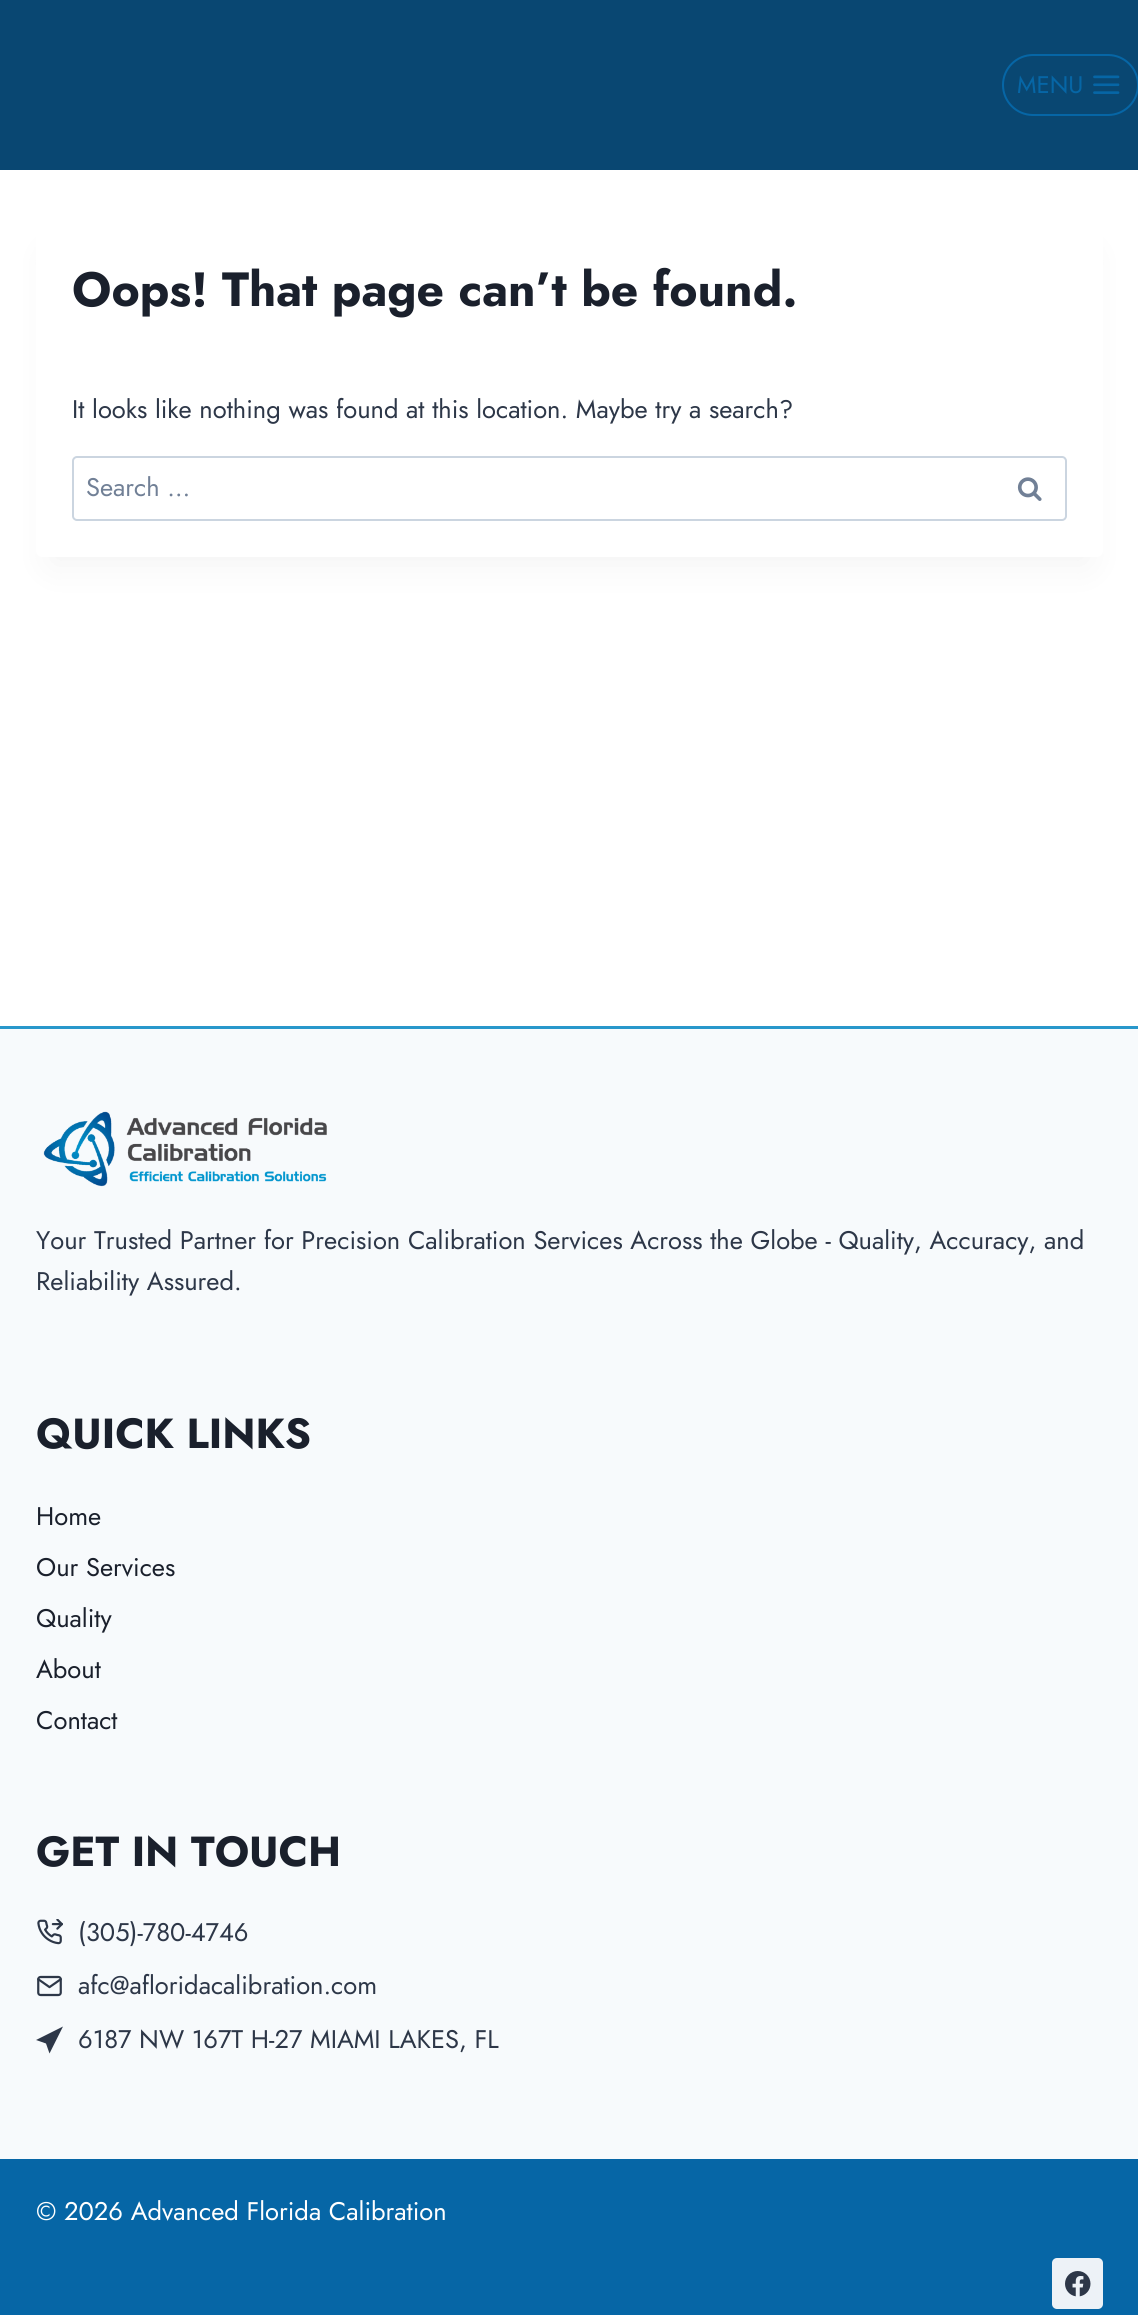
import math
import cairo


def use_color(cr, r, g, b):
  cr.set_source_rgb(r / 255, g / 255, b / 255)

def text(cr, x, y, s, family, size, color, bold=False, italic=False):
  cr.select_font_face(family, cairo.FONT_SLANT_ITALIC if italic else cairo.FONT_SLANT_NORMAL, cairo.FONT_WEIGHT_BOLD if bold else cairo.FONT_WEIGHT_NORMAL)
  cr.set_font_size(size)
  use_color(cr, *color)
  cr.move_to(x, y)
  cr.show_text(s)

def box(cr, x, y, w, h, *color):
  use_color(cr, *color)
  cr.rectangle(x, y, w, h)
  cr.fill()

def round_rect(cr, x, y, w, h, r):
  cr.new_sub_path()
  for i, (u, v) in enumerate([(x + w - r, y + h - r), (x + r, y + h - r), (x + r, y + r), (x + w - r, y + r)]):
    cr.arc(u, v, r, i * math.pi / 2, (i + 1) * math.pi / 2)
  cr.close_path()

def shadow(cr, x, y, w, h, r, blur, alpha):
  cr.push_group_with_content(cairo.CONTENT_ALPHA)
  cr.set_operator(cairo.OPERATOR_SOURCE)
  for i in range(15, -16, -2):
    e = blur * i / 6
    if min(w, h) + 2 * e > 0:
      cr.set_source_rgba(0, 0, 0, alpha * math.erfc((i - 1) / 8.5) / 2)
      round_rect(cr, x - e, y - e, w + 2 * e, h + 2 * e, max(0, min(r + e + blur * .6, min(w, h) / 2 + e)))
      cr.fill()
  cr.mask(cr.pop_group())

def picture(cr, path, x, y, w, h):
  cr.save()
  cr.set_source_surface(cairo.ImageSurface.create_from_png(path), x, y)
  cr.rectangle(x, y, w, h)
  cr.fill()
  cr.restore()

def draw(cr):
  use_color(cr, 255, 255, 255)
  cr.paint()
  box(cr, 0, 0, 1138, 170, 9, 71, 114)
  round_rect(cr, 1003, 55, 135, 60, 30)
  use_color(cr, 6, 102, 166)
  cr.stroke()
  picture(cr, "img_01.png", 1093, 75, 27, 19)
  use_color(cr, 0, 0, 0)
  shadow(cr, 51, 255, 1037, 309, 0, 19, 0.05)
  use_color(cr, 255, 255, 255)
  round_rect(cr, 36, 218, 1067, 339, 6)
  cr.fill()
  round_rect(cr, 73, 457, 993, 63, 4)
  use_color(cr, 203, 213, 224)
  cr.stroke()
  picture(cr, "img_02.png", 1017, 477, 25, 24)
  box(cr, 0, 1029, 1138, 1130, 247, 250, 252)
  box(cr, 0, 1026, 1138, 3, 40, 151, 203)
  picture(cr, "img_03.png", 43, 1111, 284, 76)
  picture(cr, "img_04.png", 37, 1919, 26, 26)
  picture(cr, "img_05.png", 37, 1975, 25, 22)
  use_color(cr, 45, 55, 72)
  cr.new_path()
  cr.move_to(63, 2026.5)
  cr.line_to(36, 2040)
  cr.line_to(46, 2043.5)
  cr.line_to(49.5, 2053.5)
  cr.close_path()
  cr.fill()
  box(cr, 0, 2159, 1138, 156, 6, 102, 166)
  use_color(cr, 237, 242, 247)
  round_rect(cr, 1052, 2258, 51, 51, 5)
  cr.fill()
  picture(cr, "img_06.png", 1065, 2271, 26, 26)
  text(cr, 1017, 93, "MENU", "Jost", 24, (6, 102, 166))
  text(cr, 72, 306, "Oops! That page can’t be found.", "Jost", 48, (26, 32, 44), bold=True)
  text(cr, 72, 418, "It looks like nothing was found at this location. Maybe try a search?", "Jost", 25.5, (45, 55, 72))
  text(cr, 86, 496, "Search …", "Jost", 25.5, (113, 128, 150))
  text(cr, 36, 1249, "Your Trusted Partner for Precision Calibration Services Across the Globe - Quality, Accuracy, and", "Jost", 25.5, (45, 55, 72))
  text(cr, 36, 1290, "Reliability Assured.", "Jost", 25.5, (45, 55, 72))
  text(cr, 36, 1448, "QUICK LINKS", "Jost", 42, (26, 32, 44), bold=True)
  text(cr, 36, 1525, "Home", "Jost", 25.5, (26, 32, 44))
  text(cr, 36, 1576, "Our Services", "Jost", 25.5, (26, 32, 44))
  text(cr, 36, 1627, "Quality", "Jost", 25.5, (26, 32, 44))
  text(cr, 36, 1678, "About", "Jost", 25.5, (26, 32, 44))
  text(cr, 36, 1729, "Contact", "Jost", 25.5, (26, 32, 44))
  text(cr, 36, 1866, "GET IN TOUCH", "Jost", 42, (26, 32, 44), bold=True)
  text(cr, 78, 1941, "(305)-780-4746", "Jost", 25.5, (45, 55, 72))
  text(cr, 78, 1994, "afc@afloridacalibration.com", "Jost", 25.5, (45, 55, 72))
  text(cr, 78, 2048, "6187 NW 167T H-27 MIAMI LAKES, FL", "Jost", 25.5, (45, 55, 72))
  text(cr, 36, 2220, "© 2026 Advanced Florida Calibration", "Jost", 25.5, (255, 255, 255))


surface = cairo.ImageSurface(cairo.FORMAT_RGB24, 1138, 2315)
cr = cairo.Context(surface)
options = cairo.FontOptions()
options.set_hint_metrics(cairo.HINT_METRICS_OFF)
options.set_hint_style(cairo.HINT_STYLE_NONE)
cr.set_font_options(options)
cr.set_miter_limit(4)
draw(cr)
surface.write_to_png("out.png")
